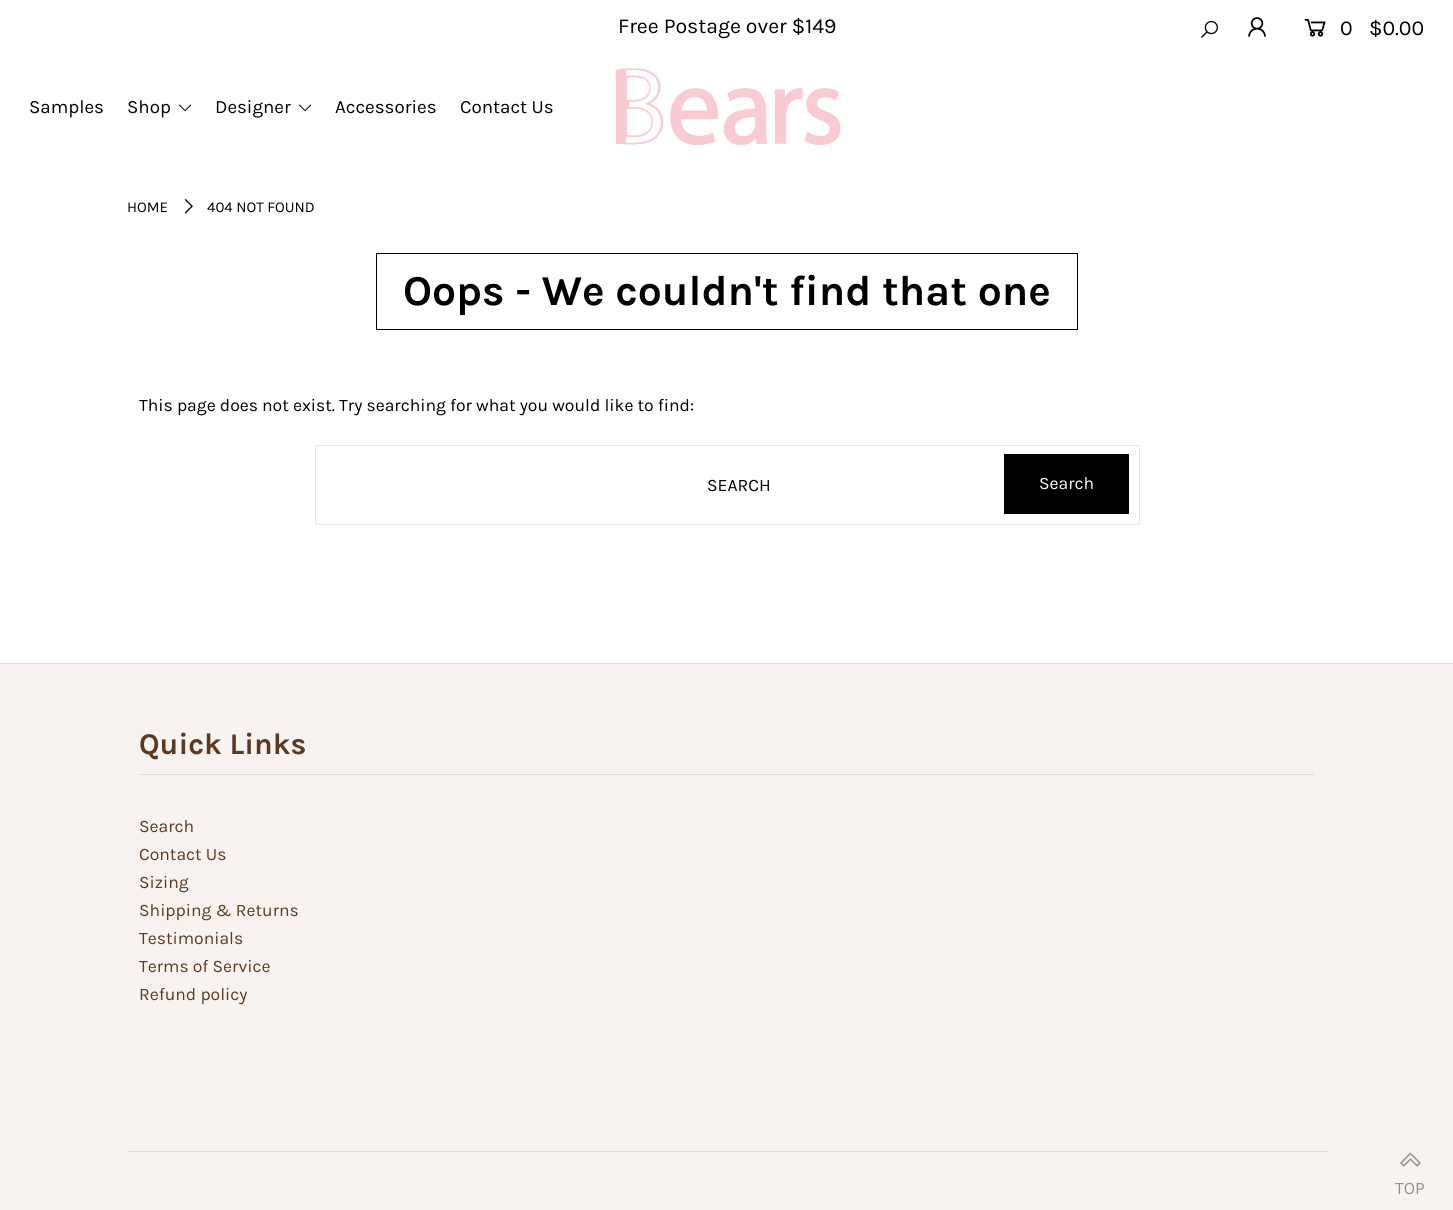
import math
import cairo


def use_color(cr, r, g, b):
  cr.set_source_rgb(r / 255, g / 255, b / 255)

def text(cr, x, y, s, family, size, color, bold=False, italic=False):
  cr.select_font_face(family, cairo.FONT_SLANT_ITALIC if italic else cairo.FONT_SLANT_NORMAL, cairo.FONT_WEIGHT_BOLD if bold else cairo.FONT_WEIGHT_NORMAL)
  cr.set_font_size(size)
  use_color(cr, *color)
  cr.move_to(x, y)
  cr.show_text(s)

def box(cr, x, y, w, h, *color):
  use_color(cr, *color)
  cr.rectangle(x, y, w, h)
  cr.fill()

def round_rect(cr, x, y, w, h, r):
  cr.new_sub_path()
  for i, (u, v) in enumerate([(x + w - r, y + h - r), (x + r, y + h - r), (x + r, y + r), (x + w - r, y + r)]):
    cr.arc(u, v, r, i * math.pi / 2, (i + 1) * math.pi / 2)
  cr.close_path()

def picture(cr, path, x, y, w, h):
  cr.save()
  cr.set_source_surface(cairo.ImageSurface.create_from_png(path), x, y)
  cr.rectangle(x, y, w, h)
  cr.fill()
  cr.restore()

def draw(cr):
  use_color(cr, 255, 255, 255)
  cr.paint()
  picture(cr, "img_01.png", 1201, 20, 17, 18)
  picture(cr, "img_02.png", 1248, 17, 18, 20)
  picture(cr, "img_03.png", 1304, 18, 22, 19)
  picture(cr, "img_04.png", 178, 104, 14, 8)
  picture(cr, "img_04.png", 298, 104, 14, 8)
  picture(cr, "img_05.png", 615, 65, 226, 81)
  picture(cr, "img_06.png", 184, 199, 9, 15)
  cr.rectangle(376.5, 253.5, 701, 76)
  use_color(cr, 0, 0, 0)
  cr.set_line_width(1)
  cr.stroke()
  round_rect(cr, 315.5, 445.5, 824, 79, 2)
  use_color(cr, 229, 229, 229)
  cr.stroke()
  box(cr, 1004, 454, 125, 60, 0, 0, 0)
  box(cr, 0, 664, 1453, 546, 248, 243, 240)
  box(cr, 0, 663, 1453, 1, 221, 221, 221)
  box(cr, 139, 774, 1175, 1, 221, 221, 221)
  box(cr, 128, 1151, 1200, 1, 221, 221, 221)
  picture(cr, "img_07.png", 1400, 1152, 21, 15)
  text(cr, 618, 33, "Free Postage over $149", "Karla", 21.25, (0, 0, 0))
  text(cr, 1340, 35, "0", "Karla", 21.25, (0, 0, 0))
  text(cr, 1369, 35, "$0.00", "Karla", 21.25, (0, 0, 0))
  text(cr, 29, 113, "Samples", "Karla", 18.75, (0, 0, 0))
  text(cr, 127, 113, "Shop", "Karla", 18.75, (0, 0, 0))
  text(cr, 215, 113, "Designer", "Karla", 18.75, (0, 0, 0))
  text(cr, 335, 113, "Accessories", "Karla", 18.75, (0, 0, 0))
  text(cr, 460, 113, "Contact Us", "Karla", 18.75, (0, 0, 0))
  text(cr, 127, 212, "HOME", "Karla", 15, (0, 0, 0))
  text(cr, 207, 212, "404 NOT FOUND", "Karla", 15, (0, 0, 0))
  text(cr, 403, 305, "Oops - We couldn't find that one", "Karla", 42.5, (0, 0, 0), bold=True)
  text(cr, 139, 411, "This page does not exist. Try searching for what you would like to find:", "Karla", 17.5, (0, 0, 0))
  text(cr, 707, 491, "SEARCH", "Karla", 17.5, (0, 0, 0))
  text(cr, 1039, 489, "Search", "Karla", 17.5, (255, 255, 255))
  text(cr, 139, 754, "Quick Links", "Karla", 30, (90, 59, 33), bold=True)
  text(cr, 139, 832, "Search", "Karla", 17.5, (90, 59, 33))
  text(cr, 139, 860, "Contact Us", "Karla", 17.5, (90, 59, 33))
  text(cr, 139, 888, "Sizing", "Karla", 17.5, (90, 59, 33))
  text(cr, 139, 916, "Shipping & Returns", "Karla", 17.5, (90, 59, 33))
  text(cr, 139, 944, "Testimonials", "Karla", 17.5, (90, 59, 33))
  text(cr, 139, 972, "Terms of Service", "Karla", 17.5, (90, 59, 33))
  text(cr, 139, 1000, "Refund policy", "Karla", 17.5, (90, 59, 33))
  text(cr, 1395, 1194, "TOP", "Karla", 17.5, (149, 146, 144))


surface = cairo.ImageSurface(cairo.FORMAT_RGB24, 1453, 1210)
cr = cairo.Context(surface)
options = cairo.FontOptions()
options.set_hint_metrics(cairo.HINT_METRICS_OFF)
options.set_hint_style(cairo.HINT_STYLE_NONE)
cr.set_font_options(options)
cr.set_miter_limit(4)
draw(cr)
surface.write_to_png("out.png")
